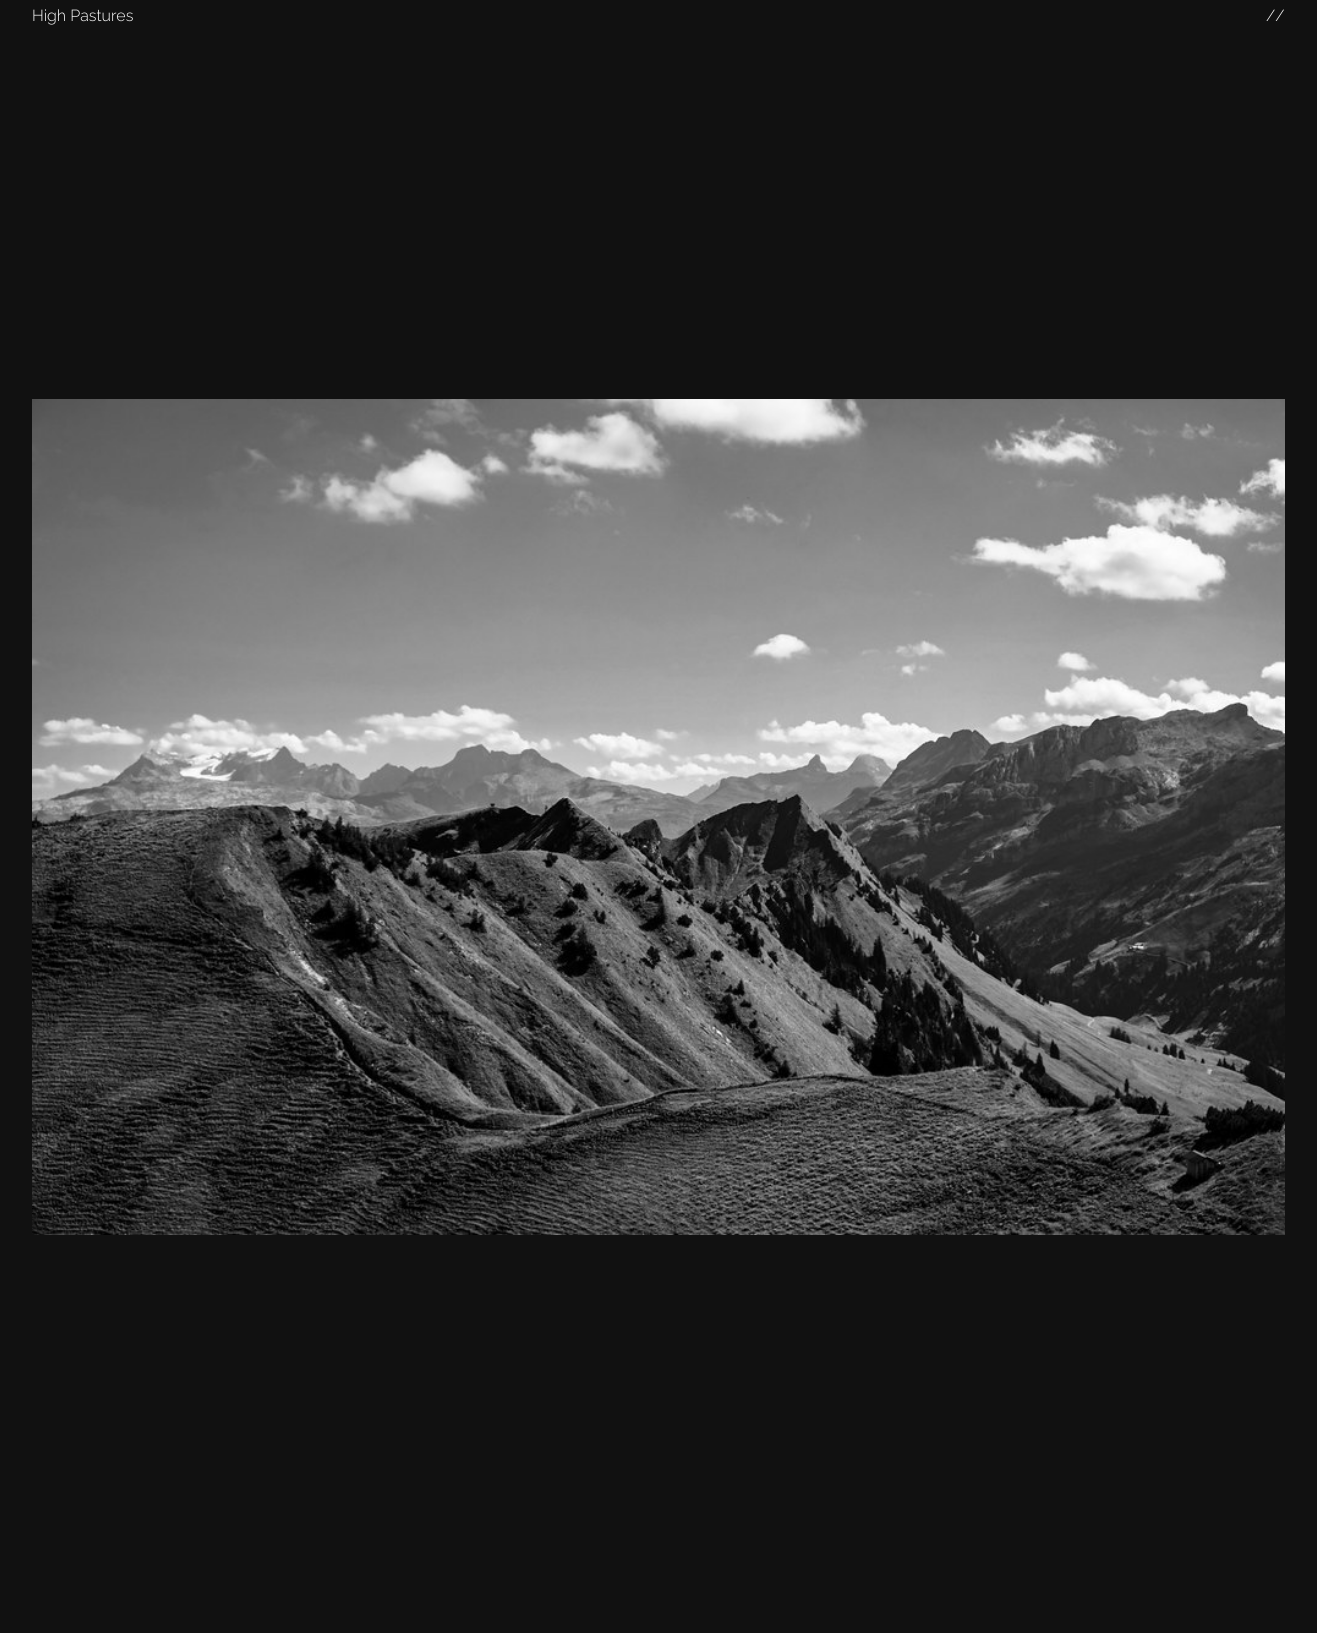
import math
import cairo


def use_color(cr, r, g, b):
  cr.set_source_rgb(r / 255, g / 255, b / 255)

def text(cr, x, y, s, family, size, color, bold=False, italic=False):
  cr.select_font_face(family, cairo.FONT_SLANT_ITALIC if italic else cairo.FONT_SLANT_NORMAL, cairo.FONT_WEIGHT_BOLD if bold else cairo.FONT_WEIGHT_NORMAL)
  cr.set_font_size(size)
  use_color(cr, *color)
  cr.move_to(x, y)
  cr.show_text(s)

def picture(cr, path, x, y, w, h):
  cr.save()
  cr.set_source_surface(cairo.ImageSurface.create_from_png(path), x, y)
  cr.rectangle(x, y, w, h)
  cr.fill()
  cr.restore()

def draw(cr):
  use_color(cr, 17, 17, 17)
  cr.paint()
  picture(cr, "img_01.png", 32, 399, 1253, 836)
  text(cr, 32, 21, "High Pastures", "Raleway Light", 16, (251, 251, 251))
  text(cr, 1266, 21, "//", "Raleway Light", 16, (251, 251, 251))


surface = cairo.ImageSurface(cairo.FORMAT_RGB24, 1317, 1633)
cr = cairo.Context(surface)
options = cairo.FontOptions()
options.set_hint_metrics(cairo.HINT_METRICS_OFF)
options.set_hint_style(cairo.HINT_STYLE_NONE)
cr.set_font_options(options)
cr.set_miter_limit(4)
draw(cr)
surface.write_to_png("out.png")
